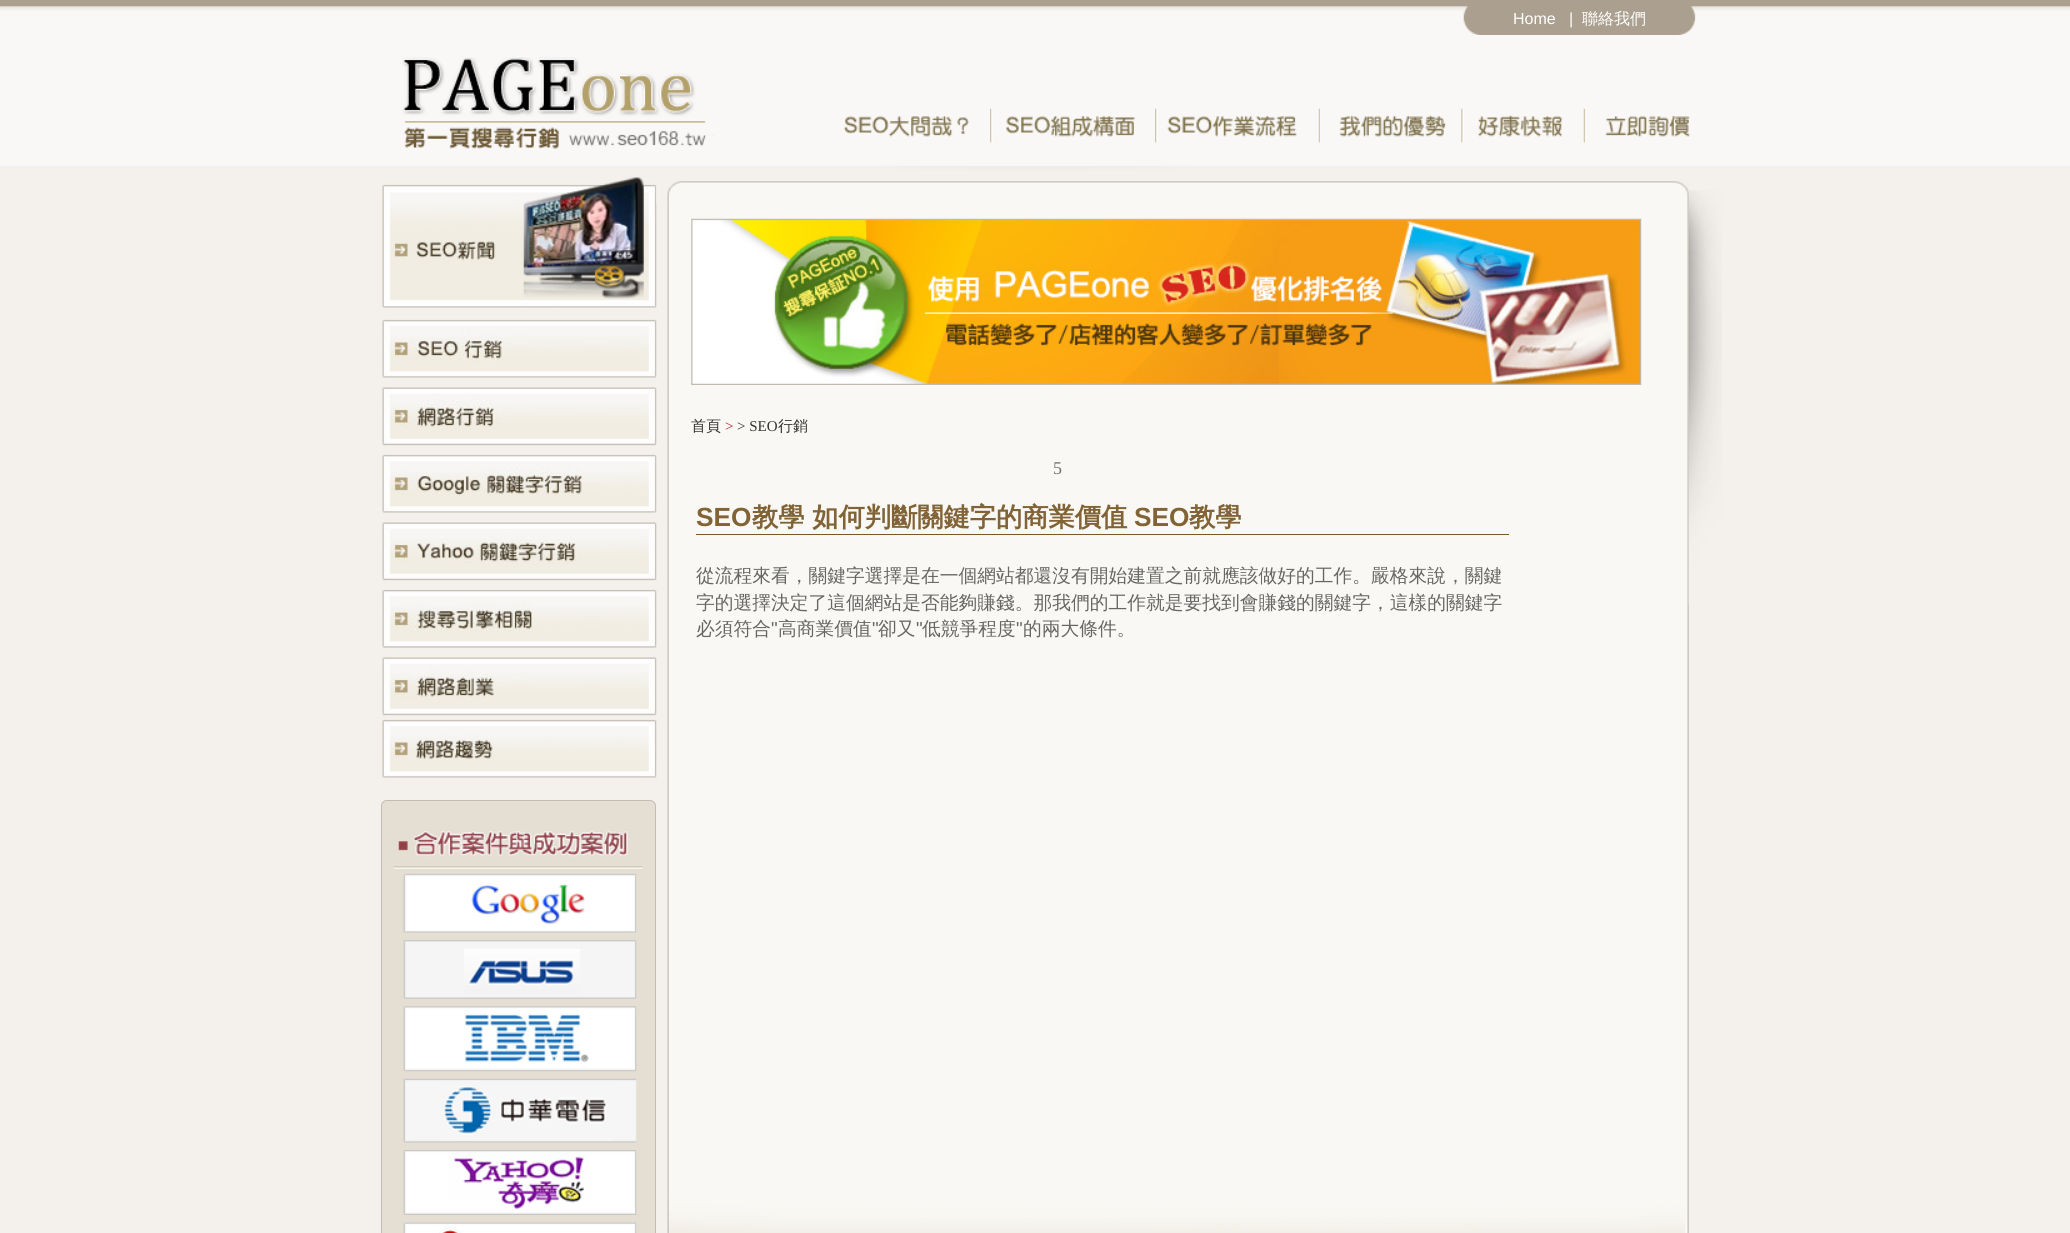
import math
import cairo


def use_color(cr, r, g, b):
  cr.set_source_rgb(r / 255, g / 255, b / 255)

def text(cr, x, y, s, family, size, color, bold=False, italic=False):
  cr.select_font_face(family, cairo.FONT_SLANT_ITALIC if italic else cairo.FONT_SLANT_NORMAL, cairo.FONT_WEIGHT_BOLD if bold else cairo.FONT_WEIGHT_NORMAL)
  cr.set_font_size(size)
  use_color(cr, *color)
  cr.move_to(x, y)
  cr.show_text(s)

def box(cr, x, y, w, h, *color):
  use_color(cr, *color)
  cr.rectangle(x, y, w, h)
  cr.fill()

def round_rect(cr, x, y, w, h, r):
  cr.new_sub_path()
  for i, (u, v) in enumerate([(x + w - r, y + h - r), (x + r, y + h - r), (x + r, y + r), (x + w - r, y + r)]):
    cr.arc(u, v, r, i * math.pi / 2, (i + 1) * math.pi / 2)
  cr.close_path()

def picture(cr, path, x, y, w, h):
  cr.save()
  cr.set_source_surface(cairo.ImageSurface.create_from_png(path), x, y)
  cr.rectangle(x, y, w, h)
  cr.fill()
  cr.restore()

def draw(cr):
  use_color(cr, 255, 255, 255)
  cr.paint()
  picture(cr, "img_01.png", 0, 0, 2070, 166)
  picture(cr, "img_02.png", 1463, 6, 233, 29)
  picture(cr, "img_03.png", 843, 116, 126, 21)
  picture(cr, "img_04.png", 990, 108, 146, 35)
  picture(cr, "img_05.png", 1155, 108, 142, 35)
  picture(cr, "img_06.png", 1318, 108, 128, 35)
  picture(cr, "img_07.png", 1461, 108, 102, 35)
  picture(cr, "img_08.png", 1583, 108, 107, 35)
  picture(cr, "img_09.png", 402, 57, 312, 92)
  box(cr, 0, 166, 2070, 1067, 244, 241, 236)
  picture(cr, "img_10.png", 382, 177, 275, 131)
  picture(cr, "img_11.png", 381, 319, 276, 60)
  picture(cr, "img_12.png", 381, 386, 276, 60)
  picture(cr, "img_13.png", 381, 454, 276, 60)
  picture(cr, "img_14.png", 381, 521, 276, 60)
  picture(cr, "img_15.png", 381, 589, 276, 60)
  picture(cr, "img_16.png", 381, 656, 276, 60)
  picture(cr, "img_17.png", 382, 719, 275, 59)
  use_color(cr, 229, 222, 211)
  round_rect(cr, 381.5, 800.5, 274, 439, 5.5)
  cr.fill_preserve()
  use_color(cr, 194, 188, 179)
  cr.set_line_width(1)
  cr.stroke()
  picture(cr, "img_18.png", 393, 831, 250, 38)
  picture(cr, "img_19.png", 402, 873, 235, 60)
  picture(cr, "img_20.png", 403, 940, 234, 59)
  picture(cr, "img_21.png", 403, 1006, 234, 66)
  picture(cr, "img_22.png", 403, 1078, 234, 65)
  picture(cr, "img_23.png", 403, 1150, 234, 65)
  picture(cr, "img_24.png", 403, 1222, 234, 11)
  picture(cr, "img_26.png", 667, 202, 1022, 997)
  picture(cr, "img_25.png", 656, 166, 1033, 37)
  picture(cr, "img_27.png", 691, 218, 951, 167)
  box(cr, 696, 534, 813, 1, 119, 86, 43)
  picture(cr, "img_28.png", 667, 1198, 1022, 35)
  picture(cr, "img_29.png", 1688, 190, 34, 414)
  text(cr, 1513, 24, "Home   |", "Liberation Sans", 16, (255, 255, 255))
  text(cr, 1582, 24, "聯絡我們", "WenQuanYi Zen Hei Medium", 16, (255, 255, 255))
  text(cr, 691, 431, "首頁", "WenQuanYi Zen Hei Medium", 15, (51, 51, 51))
  text(cr, 725, 431, ">", "Liberation Serif", 15, (182, 33, 50))
  text(cr, 737, 431, "> SEO", "Liberation Serif", 15, (51, 51, 51))
  text(cr, 778, 431, "行銷", "WenQuanYi Zen Hei Medium", 15, (51, 51, 51))
  text(cr, 1053, 474, "5", "Liberation Serif", 18, (114, 114, 114))
  text(cr, 696, 526, "SEO", "Liberation Sans", 26.25, (129, 99, 54), bold=True)
  text(cr, 752, 526, "教學 如何判斷關鍵字的商業價值", "WenQuanYi Zen Hei", 26.25, (129, 99, 54), bold=True)
  text(cr, 1134, 526, "SEO", "Liberation Sans", 26.25, (129, 99, 54), bold=True)
  text(cr, 1189, 526, "教學", "WenQuanYi Zen Hei", 26.25, (129, 99, 54), bold=True)
  text(cr, 696, 582, "從流程來看，關鍵字選擇是在一個網站都還沒有開始建置之前就應該做好的工作。嚴格來說，關鍵", "WenQuanYi Zen Hei Medium", 18.75, (102, 102, 102))
  text(cr, 696, 609, "字的選擇決定了這個網站是否能夠賺錢。那我們的工作就是要找到會賺錢的關鍵字，這樣的關鍵字", "WenQuanYi Zen Hei Medium", 18.75, (102, 102, 102))
  text(cr, 696, 635, "必須符合", "WenQuanYi Zen Hei Medium", 18.75, (102, 102, 102))
  text(cr, 771, 635, "\"", "Liberation Sans", 18.75, (102, 102, 102))
  text(cr, 778, 635, "高商業價值", "WenQuanYi Zen Hei Medium", 18.75, (102, 102, 102))
  text(cr, 872, 635, "\"", "Liberation Sans", 18.75, (102, 102, 102))
  text(cr, 878, 635, "卻又", "WenQuanYi Zen Hei Medium", 18.75, (102, 102, 102))
  text(cr, 916, 635, "\"", "Liberation Sans", 18.75, (102, 102, 102))
  text(cr, 922, 635, "低競爭程度", "WenQuanYi Zen Hei Medium", 18.75, (102, 102, 102))
  text(cr, 1016, 635, "\"", "Liberation Sans", 18.75, (102, 102, 102))
  text(cr, 1023, 635, "的兩大條件。", "WenQuanYi Zen Hei Medium", 18.75, (102, 102, 102))


surface = cairo.ImageSurface(cairo.FORMAT_RGB24, 2070, 1233)
cr = cairo.Context(surface)
options = cairo.FontOptions()
options.set_hint_metrics(cairo.HINT_METRICS_OFF)
options.set_hint_style(cairo.HINT_STYLE_NONE)
cr.set_font_options(options)
cr.set_miter_limit(4)
draw(cr)
surface.write_to_png("out.png")
